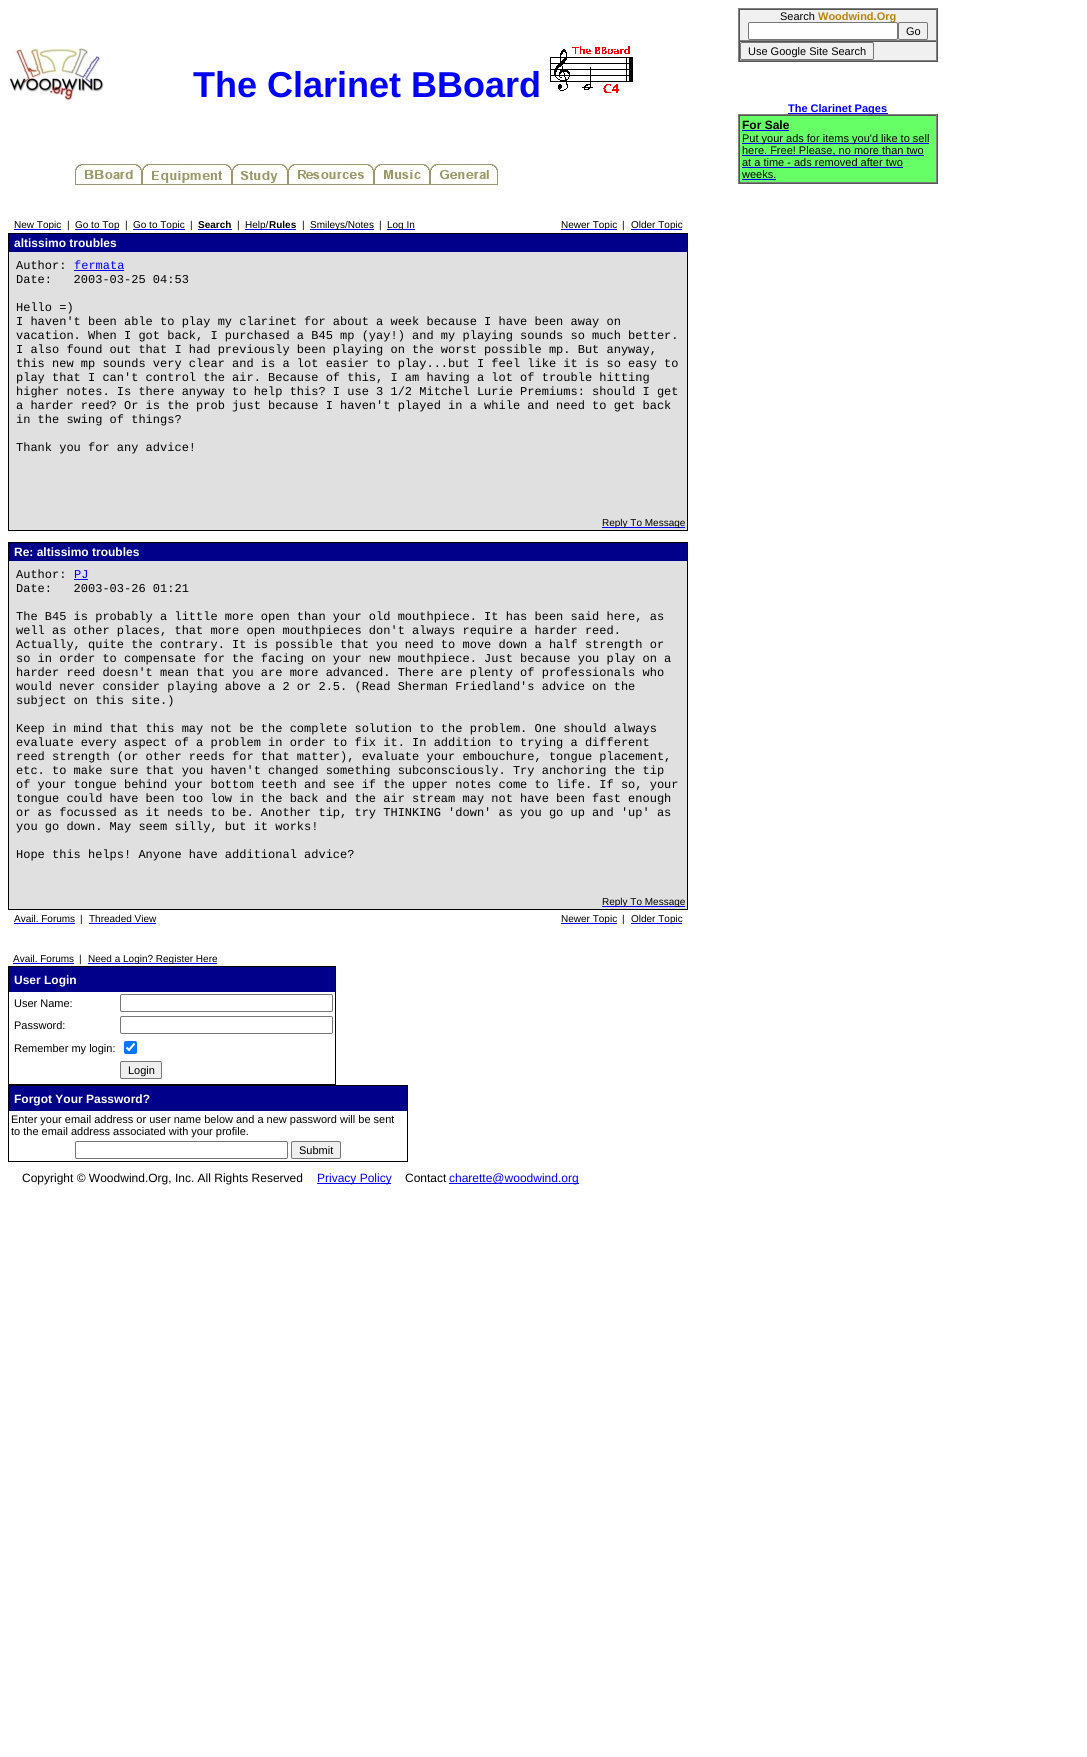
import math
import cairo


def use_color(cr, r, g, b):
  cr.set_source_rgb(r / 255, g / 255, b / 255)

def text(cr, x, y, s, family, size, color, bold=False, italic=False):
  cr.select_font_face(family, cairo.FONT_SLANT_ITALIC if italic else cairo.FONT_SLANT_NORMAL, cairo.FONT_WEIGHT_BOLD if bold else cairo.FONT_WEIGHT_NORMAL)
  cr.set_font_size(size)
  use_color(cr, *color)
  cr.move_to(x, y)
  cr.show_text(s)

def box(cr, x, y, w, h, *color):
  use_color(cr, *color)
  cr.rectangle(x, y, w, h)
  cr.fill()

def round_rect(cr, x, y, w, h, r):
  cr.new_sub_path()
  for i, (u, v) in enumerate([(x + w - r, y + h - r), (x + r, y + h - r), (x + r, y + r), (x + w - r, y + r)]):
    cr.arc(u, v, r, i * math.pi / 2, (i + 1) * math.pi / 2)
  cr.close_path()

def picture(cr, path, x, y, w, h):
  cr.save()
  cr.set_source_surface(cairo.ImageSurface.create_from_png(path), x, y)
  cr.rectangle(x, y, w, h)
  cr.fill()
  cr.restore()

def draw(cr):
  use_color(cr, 255, 255, 255)
  cr.paint()
  picture(cr, "img_01.png", 9, 47, 95, 54)
  picture(cr, "img_02.png", 550, 46, 83, 47)
  picture(cr, "img_03.png", 75, 164, 67, 22)
  picture(cr, "img_04.png", 142, 164, 90, 22)
  picture(cr, "img_05.png", 232, 164, 56, 22)
  picture(cr, "img_06.png", 288, 164, 86, 22)
  picture(cr, "img_07.png", 374, 164, 56, 22)
  picture(cr, "img_08.png", 430, 164, 68, 22)
  box(cr, 14, 229, 47, 1, 0, 0, 255)
  box(cr, 75, 229, 44, 1, 0, 0, 255)
  box(cr, 133, 229, 52, 1, 0, 0, 255)
  box(cr, 198, 229, 34, 1, 0, 0, 255)
  box(cr, 245, 229, 51, 1, 0, 0, 255)
  box(cr, 310, 229, 64, 1, 0, 0, 255)
  box(cr, 387, 229, 28, 1, 0, 0, 255)
  box(cr, 561, 229, 56, 1, 0, 0, 255)
  box(cr, 631, 229, 51, 1, 0, 0, 255)
  cr.rectangle(8.5, 233.5, 679, 297)
  use_color(cr, 0, 0, 0)
  cr.set_line_width(1)
  cr.stroke()
  box(cr, 9, 234, 678, 18, 0, 0, 138)
  box(cr, 9, 252, 678, 278, 224, 224, 224)
  box(cr, 74, 270, 50, 1, 0, 0, 255)
  box(cr, 602, 527, 83, 1, 0, 0, 255)
  cr.rectangle(8.5, 542.5, 679, 367)
  use_color(cr, 0, 0, 0)
  cr.stroke()
  box(cr, 9, 543, 678, 18, 0, 0, 138)
  box(cr, 9, 561, 678, 348, 224, 224, 224)
  box(cr, 74, 579, 14, 1, 0, 0, 255)
  box(cr, 602, 906, 83, 1, 0, 0, 255)
  box(cr, 14, 923, 61, 1, 0, 0, 255)
  box(cr, 89, 923, 67, 1, 0, 0, 255)
  box(cr, 561, 923, 56, 1, 0, 0, 255)
  box(cr, 631, 923, 51, 1, 0, 0, 255)
  box(cr, 13, 963, 61, 1, 0, 0, 255)
  box(cr, 88, 963, 129, 1, 0, 0, 255)
  cr.rectangle(8.5, 966.5, 327, 118)
  use_color(cr, 0, 0, 0)
  cr.stroke()
  box(cr, 9, 967, 326, 25, 0, 0, 138)
  round_rect(cr, 120.5, 994.5, 212, 17, 1.5)
  use_color(cr, 118, 118, 118)
  cr.stroke()
  round_rect(cr, 120.5, 1016.5, 212, 17, 1.5)
  cr.stroke()
  use_color(cr, 0, 117, 255)
  round_rect(cr, 124, 1041, 13, 13, 2)
  cr.fill()
  cr.new_path()
  cr.move_to(126.5, 1047.5)
  cr.line_to(129, 1050)
  cr.line_to(134.5, 1043.5)
  use_color(cr, 255, 255, 255)
  cr.set_line_width(2.1)
  cr.stroke()
  use_color(cr, 239, 239, 239)
  round_rect(cr, 120.5, 1061.5, 41, 17, 1.5)
  cr.fill_preserve()
  use_color(cr, 118, 118, 118)
  cr.set_line_width(1)
  cr.stroke()
  cr.rectangle(8.5, 1085.5, 399, 76)
  use_color(cr, 0, 0, 0)
  cr.stroke()
  box(cr, 9, 1086, 398, 25, 0, 0, 138)
  round_rect(cr, 75.5, 1141.5, 212, 17, 1.5)
  use_color(cr, 118, 118, 118)
  cr.stroke()
  use_color(cr, 239, 239, 239)
  round_rect(cr, 291.5, 1141.5, 49, 17, 1.5)
  cr.fill_preserve()
  use_color(cr, 118, 118, 118)
  cr.stroke()
  box(cr, 740, 10, 196, 50, 240, 240, 240)
  box(cr, 738, 8, 200, 1, 128, 128, 128)
  box(cr, 937, 8, 1, 54, 85, 85, 85)
  box(cr, 738, 61, 200, 1, 85, 85, 85)
  box(cr, 738, 8, 1, 54, 128, 128, 128)
  box(cr, 739, 9, 198, 1, 85, 85, 85)
  box(cr, 936, 9, 1, 32, 128, 128, 128)
  box(cr, 739, 40, 198, 1, 128, 128, 128)
  box(cr, 739, 9, 1, 32, 85, 85, 85)
  round_rect(cr, 898.5, 22.5, 29, 17, 1.5)
  use_color(cr, 118, 118, 118)
  cr.stroke()
  box(cr, 739, 41, 198, 1, 85, 85, 85)
  box(cr, 936, 41, 1, 20, 128, 128, 128)
  box(cr, 739, 60, 198, 1, 128, 128, 128)
  box(cr, 739, 41, 1, 20, 85, 85, 85)
  round_rect(cr, 740.5, 42.5, 133, 17, 1.5)
  use_color(cr, 118, 118, 118)
  cr.stroke()
  box(cr, 788, 113, 100, 1, 0, 0, 255)
  box(cr, 740, 116, 196, 66, 102, 255, 102)
  box(cr, 738, 114, 200, 1, 128, 128, 128)
  box(cr, 937, 114, 1, 70, 85, 85, 85)
  box(cr, 738, 183, 200, 1, 85, 85, 85)
  box(cr, 738, 114, 1, 70, 128, 128, 128)
  box(cr, 739, 115, 198, 1, 85, 85, 85)
  box(cr, 936, 115, 1, 68, 128, 128, 128)
  box(cr, 739, 182, 198, 1, 128, 128, 128)
  box(cr, 739, 115, 1, 68, 85, 85, 85)
  box(cr, 742, 130, 47, 1, 0, 0, 255)
  box(cr, 742, 143, 187, 1, 0, 0, 255)
  box(cr, 742, 155, 182, 1, 0, 0, 255)
  box(cr, 742, 167, 161, 1, 0, 0, 255)
  box(cr, 742, 179, 34, 1, 0, 0, 255)
  box(cr, 317, 1183, 74, 1, 0, 0, 255)
  box(cr, 449, 1183, 130, 1, 0, 0, 255)
  text(cr, 193, 97, "The Clarinet BBoard", "Liberation Sans", 36, (0, 0, 255), bold=True)
  text(cr, 14, 228, "New Topic", "Liberation Sans", 10, (0, 0, 0))
  text(cr, 67, 228, "|", "Liberation Sans", 10, (0, 0, 0))
  text(cr, 75, 228, "Go to Top", "Liberation Sans", 10, (0, 0, 0))
  text(cr, 125, 228, "|", "Liberation Sans", 10, (0, 0, 0))
  text(cr, 133, 228, "Go to Topic", "Liberation Sans", 10, (0, 0, 0))
  text(cr, 190, 228, "|", "Liberation Sans", 10, (0, 0, 0))
  text(cr, 198, 228, "Search", "Liberation Sans", 10, (0, 0, 0), bold=True)
  text(cr, 237, 228, "|", "Liberation Sans", 10, (0, 0, 0))
  text(cr, 245, 228, "Help/", "Liberation Sans", 10, (0, 0, 0))
  text(cr, 269, 228, "Rules", "Liberation Sans", 10, (0, 0, 0), bold=True)
  text(cr, 302, 228, "|", "Liberation Sans", 10, (0, 0, 0))
  text(cr, 310, 228, "Smileys/Notes", "Liberation Sans", 10, (0, 0, 0))
  text(cr, 379, 228, "|", "Liberation Sans", 10, (0, 0, 0))
  text(cr, 387, 228, "Log In", "Liberation Sans", 10, (0, 0, 0))
  text(cr, 561, 228, "Newer Topic", "Liberation Sans", 10, (0, 0, 0))
  text(cr, 622, 228, "|", "Liberation Sans", 10, (0, 0, 0))
  text(cr, 631, 228, "Older Topic", "Liberation Sans", 10, (0, 0, 0))
  text(cr, 14, 247, "altissimo troubles", "Liberation Sans", 12, (255, 255, 255), bold=True)
  text(cr, 16, 269, "Author:", "Liberation Mono", 12, (0, 0, 0))
  text(cr, 74, 269, "fermata", "Liberation Mono", 12, (0, 0, 255))
  text(cr, 16, 283, "Date:   2003-03-25 04:53", "Liberation Mono", 12, (0, 0, 0))
  text(cr, 16, 311, "Hello =)", "Liberation Mono", 12, (0, 0, 0))
  text(cr, 16, 325, "I haven't been able to play my clarinet for about a week because I have been away on", "Liberation Mono", 12, (0, 0, 0))
  text(cr, 16, 339, "vacation. When I got back, I purchased a B45 mp (yay!) and my playing sounds so much better.", "Liberation Mono", 12, (0, 0, 0))
  text(cr, 16, 353, "I also found out that I had previously been playing on the worst possible mp. But anyway,", "Liberation Mono", 12, (0, 0, 0))
  text(cr, 16, 367, "this new mp sounds very clear and is a lot easier to play...but I feel like it is so easy to", "Liberation Mono", 12, (0, 0, 0))
  text(cr, 16, 381, "play that I can't control the air. Because of this, I am having a lot of trouble hitting", "Liberation Mono", 12, (0, 0, 0))
  text(cr, 16, 395, "higher notes. Is there anyway to help this? I use 3 1/2 Mitchel Lurie Premiums: should I get", "Liberation Mono", 12, (0, 0, 0))
  text(cr, 16, 409, "a harder reed? Or is the prob just because I haven't played in a while and need to get back", "Liberation Mono", 12, (0, 0, 0))
  text(cr, 16, 423, "in the swing of things?", "Liberation Mono", 12, (0, 0, 0))
  text(cr, 16, 451, "Thank you for any advice!", "Liberation Mono", 12, (0, 0, 0))
  text(cr, 602, 526, "Reply To Message", "Liberation Sans", 10, (0, 0, 0))
  text(cr, 14, 556, "Re: altissimo troubles", "Liberation Sans", 12, (255, 255, 255), bold=True)
  text(cr, 16, 578, "Author:", "Liberation Mono", 12, (0, 0, 0))
  text(cr, 74, 578, "PJ", "Liberation Mono", 12, (0, 0, 255))
  text(cr, 16, 592, "Date:   2003-03-26 01:21", "Liberation Mono", 12, (0, 0, 0))
  text(cr, 16, 620, "The B45 is probably a little more open than your old mouthpiece. It has been said here, as", "Liberation Mono", 12, (0, 0, 0))
  text(cr, 16, 634, "well as other places, that more open mouthpieces don't always require a harder reed.", "Liberation Mono", 12, (0, 0, 0))
  text(cr, 16, 648, "Actually, quite the contrary. It is possible that you need to move down a half strength or", "Liberation Mono", 12, (0, 0, 0))
  text(cr, 16, 662, "so in order to compensate for the facing on your new mouthpiece. Just because you play on a", "Liberation Mono", 12, (0, 0, 0))
  text(cr, 16, 676, "harder reed doesn't mean that you are more advanced. There are plenty of professionals who", "Liberation Mono", 12, (0, 0, 0))
  text(cr, 16, 690, "would never consider playing above a 2 or 2.5. (Read Sherman Friedland's advice on the", "Liberation Mono", 12, (0, 0, 0))
  text(cr, 16, 704, "subject on this site.)", "Liberation Mono", 12, (0, 0, 0))
  text(cr, 16, 732, "Keep in mind that this may not be the complete solution to the problem. One should always", "Liberation Mono", 12, (0, 0, 0))
  text(cr, 16, 746, "evaluate every aspect of a problem in order to fix it. In addition to trying a different", "Liberation Mono", 12, (0, 0, 0))
  text(cr, 16, 760, "reed strength (or other reeds for that matter), evaluate your embouchure, tongue placement,", "Liberation Mono", 12, (0, 0, 0))
  text(cr, 16, 774, "etc. to make sure that you haven't changed something subconsciously. Try anchoring the tip", "Liberation Mono", 12, (0, 0, 0))
  text(cr, 16, 788, "of your tongue behind your bottom teeth and see if the upper notes come to life. If so, your", "Liberation Mono", 12, (0, 0, 0))
  text(cr, 16, 802, "tongue could have been too low in the back and the air stream may not have been fast enough", "Liberation Mono", 12, (0, 0, 0))
  text(cr, 16, 816, "or as focussed as it needs to be. Another tip, try THINKING 'down' as you go up and 'up' as", "Liberation Mono", 12, (0, 0, 0))
  text(cr, 16, 830, "you go down. May seem silly, but it works!", "Liberation Mono", 12, (0, 0, 0))
  text(cr, 16, 858, "Hope this helps! Anyone have additional advice?", "Liberation Mono", 12, (0, 0, 0))
  text(cr, 602, 905, "Reply To Message", "Liberation Sans", 10, (0, 0, 0))
  text(cr, 14, 922, "Avail. Forums", "Liberation Sans", 10, (0, 0, 0))
  text(cr, 80, 922, "|", "Liberation Sans", 10, (0, 0, 0))
  text(cr, 89, 922, "Threaded View", "Liberation Sans", 10, (0, 0, 0))
  text(cr, 561, 922, "Newer Topic", "Liberation Sans", 10, (0, 0, 0))
  text(cr, 622, 922, "|", "Liberation Sans", 10, (0, 0, 0))
  text(cr, 631, 922, "Older Topic", "Liberation Sans", 10, (0, 0, 0))
  text(cr, 13, 962, "Avail. Forums", "Liberation Sans", 10, (0, 0, 0))
  text(cr, 79, 962, "|", "Liberation Sans", 10, (0, 0, 0))
  text(cr, 88, 962, "Need a Login? Register Here", "Liberation Sans", 10, (0, 0, 0))
  text(cr, 14, 984, "User Login", "Liberation Sans", 12, (255, 255, 255), bold=True)
  text(cr, 14, 1007, "User Name:", "Liberation Sans", 11, (0, 0, 0))
  text(cr, 14, 1029, "Password:", "Liberation Sans", 11, (0, 0, 0))
  text(cr, 14, 1052, "Remember my login:", "Liberation Sans", 11, (0, 0, 0))
  text(cr, 128, 1074, "Login", "Liberation Sans", 11, (0, 0, 0))
  text(cr, 14, 1103, "Forgot Your Password?", "Liberation Sans", 12, (255, 255, 255), bold=True)
  text(cr, 11, 1123, "Enter your email address or user name below and a new password will be sent", "Liberation Sans", 11, (0, 0, 0))
  text(cr, 11, 1135, "to the email address associated with your profile.", "Liberation Sans", 11, (0, 0, 0))
  text(cr, 299, 1154, "Submit", "Liberation Sans", 11, (0, 0, 0))
  text(cr, 780, 20, "Search", "Liberation Sans", 11, (0, 0, 0))
  text(cr, 818, 20, "Woodwind.Org", "Liberation Sans", 11, (184, 134, 11), bold=True)
  use_color(cr, 255, 255, 255)
  round_rect(cr, 748.5, 22.5, 149, 17, 1.5)
  cr.fill_preserve()
  use_color(cr, 118, 118, 118)
  cr.stroke()
  text(cr, 906, 35, "Go", "Liberation Sans", 11, (0, 0, 0))
  text(cr, 748, 55, "Use Google Site Search", "Liberation Sans", 11, (0, 0, 0))
  text(cr, 788, 112, "The Clarinet Pages", "Liberation Sans", 11, (0, 0, 255), bold=True)
  text(cr, 742, 129, "For Sale", "Liberation Sans", 12, (0, 0, 0), bold=True)
  text(cr, 742, 142, "Put your ads for items you'd like to sell", "Liberation Sans", 11, (0, 0, 0))
  text(cr, 742, 154, "here. Free! Please, no more than two", "Liberation Sans", 11, (0, 0, 0))
  text(cr, 742, 166, "at a time - ads removed after two", "Liberation Sans", 11, (0, 0, 0))
  text(cr, 742, 178, "weeks.", "Liberation Sans", 11, (0, 0, 0))
  text(cr, 22, 1182, "Copyright © Woodwind.Org, Inc. All Rights Reserved", "Liberation Sans", 12, (0, 0, 0))
  text(cr, 317, 1182, "Privacy Policy", "Liberation Sans", 12, (0, 0, 255))
  text(cr, 405, 1182, "Contact", "Liberation Sans", 12, (0, 0, 0))
  text(cr, 449, 1182, "charette@woodwind.org", "Liberation Sans", 12, (0, 0, 255))


surface = cairo.ImageSurface(cairo.FORMAT_RGB24, 1087, 1757)
cr = cairo.Context(surface)
options = cairo.FontOptions()
options.set_hint_metrics(cairo.HINT_METRICS_OFF)
options.set_hint_style(cairo.HINT_STYLE_NONE)
cr.set_font_options(options)
cr.set_miter_limit(4)
draw(cr)
surface.write_to_png("out.png")
